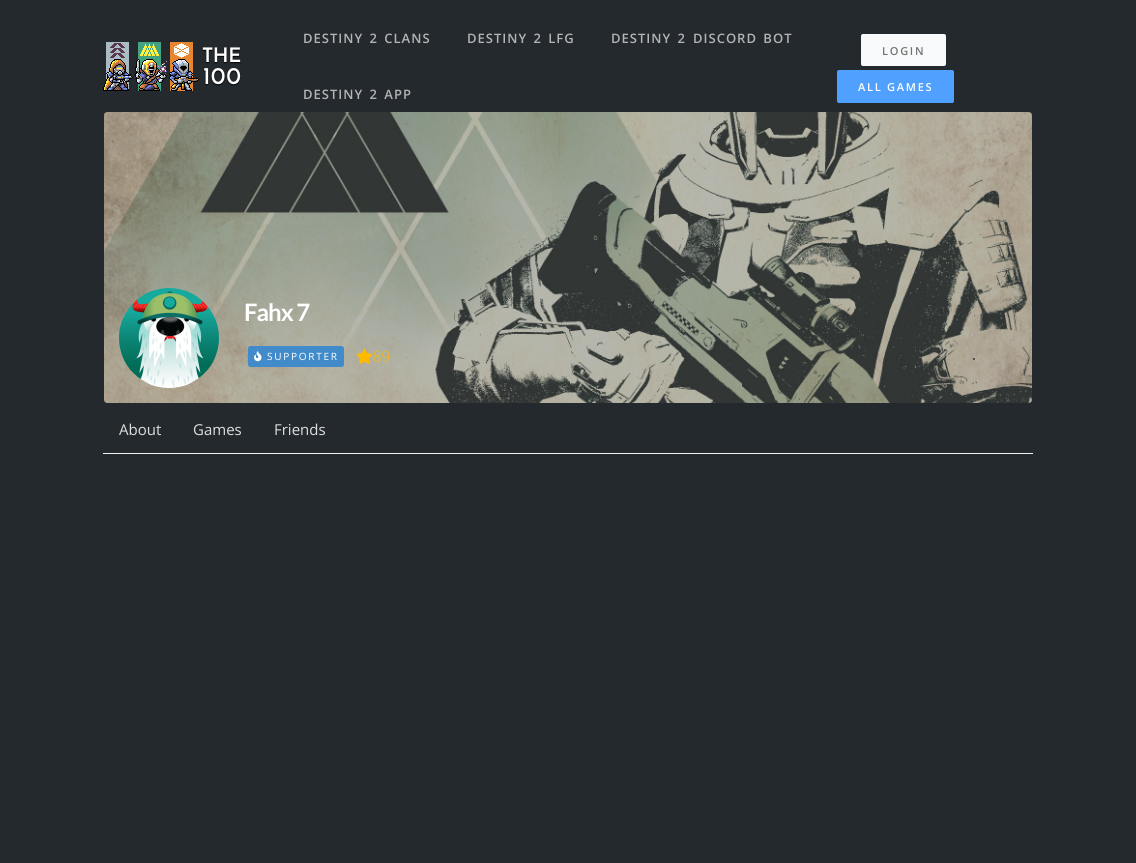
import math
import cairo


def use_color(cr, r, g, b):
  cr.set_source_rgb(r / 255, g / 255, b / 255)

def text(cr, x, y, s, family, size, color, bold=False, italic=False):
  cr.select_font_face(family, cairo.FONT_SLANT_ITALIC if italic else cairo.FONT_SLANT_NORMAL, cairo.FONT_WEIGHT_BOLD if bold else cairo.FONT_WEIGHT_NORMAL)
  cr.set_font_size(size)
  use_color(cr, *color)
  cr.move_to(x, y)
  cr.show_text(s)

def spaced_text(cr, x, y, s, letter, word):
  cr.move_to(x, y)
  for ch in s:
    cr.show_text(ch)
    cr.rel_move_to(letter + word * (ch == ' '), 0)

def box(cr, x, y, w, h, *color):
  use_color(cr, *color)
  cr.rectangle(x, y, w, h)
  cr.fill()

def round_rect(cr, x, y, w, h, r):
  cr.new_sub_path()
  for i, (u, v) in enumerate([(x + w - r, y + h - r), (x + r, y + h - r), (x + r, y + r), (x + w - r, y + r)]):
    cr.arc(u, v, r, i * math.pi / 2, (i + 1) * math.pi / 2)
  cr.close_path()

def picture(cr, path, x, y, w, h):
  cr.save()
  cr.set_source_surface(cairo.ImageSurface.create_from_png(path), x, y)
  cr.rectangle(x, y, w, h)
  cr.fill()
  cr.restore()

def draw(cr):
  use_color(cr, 36, 41, 46)
  cr.paint()
  picture(cr, "img_01.png", 103, 42, 138, 49)
  use_color(cr, 248, 249, 250)
  round_rect(cr, 861.5, 34.5, 84, 31, 1.5)
  cr.fill_preserve()
  cr.set_line_width(1)
  cr.stroke()
  use_color(cr, 80, 161, 255)
  round_rect(cr, 837.5, 70.5, 116, 32, 1.5)
  cr.fill_preserve()
  cr.stroke()
  picture(cr, "img_02.png", 104, 112, 928, 291)
  cr.set_source_rgba(0.098, 0.098, 0.098, 0.3)
  round_rect(cr, 104, 112, 928, 291, 4)
  cr.fill()
  picture(cr, "img_03.png", 119, 288, 100, 100)
  use_color(cr, 66, 139, 202)
  round_rect(cr, 248, 346, 96, 21, 2.5)
  cr.fill()
  picture(cr, "img_04.png", 254, 351, 8, 11)
  picture(cr, "img_05.png", 356, 348, 17, 16)
  box(cr, 103, 453, 930, 1, 241, 242, 243)
  cr.select_font_face("Open Sans SemiBold")
  cr.set_font_size(13)
  use_color(cr, 178, 180, 182)
  spaced_text(cr, 303, 43, "DESTINY 2 CLANS", 1, 2)
  spaced_text(cr, 467, 43, "DESTINY 2 LFG", 1, 2)
  spaced_text(cr, 611, 43, "DESTINY 2", 1, 2)
  spaced_text(cr, 693, 43, "DISCORD BOT", 1, 2)
  spaced_text(cr, 303, 99, "DESTINY 2 APP", 1, 2)
  cr.set_font_size(11)
  use_color(cr, 117, 117, 117)
  spaced_text(cr, 882, 55, "LOGIN", 1.75, 0)
  use_color(cr, 255, 255, 255)
  spaced_text(cr, 858, 91, "ALL GAMES", 1.75, 0)
  cr.select_font_face("Lato", cairo.FONT_SLANT_NORMAL, cairo.FONT_WEIGHT_BOLD)
  cr.set_font_size(24)
  spaced_text(cr, 244, 321, "Fahx 7", -1, 0)
  cr.select_font_face("Open Sans")
  cr.set_font_size(10)
  spaced_text(cr, 267, 360, "SUPPORTER", 1.75, 0)
  text(cr, 373, 362, "89", "Open Sans Light", 15, (255, 186, 0))
  text(cr, 119, 435, "About", "Open Sans", 15, (222, 223, 224))
  text(cr, 193, 435, "Games", "Open Sans", 15, (222, 223, 224))
  text(cr, 274, 435, "Friends", "Open Sans", 15, (222, 223, 224))


surface = cairo.ImageSurface(cairo.FORMAT_RGB24, 1136, 863)
cr = cairo.Context(surface)
options = cairo.FontOptions()
options.set_hint_metrics(cairo.HINT_METRICS_OFF)
options.set_hint_style(cairo.HINT_STYLE_NONE)
cr.set_font_options(options)
cr.set_miter_limit(4)
draw(cr)
surface.write_to_png("out.png")
